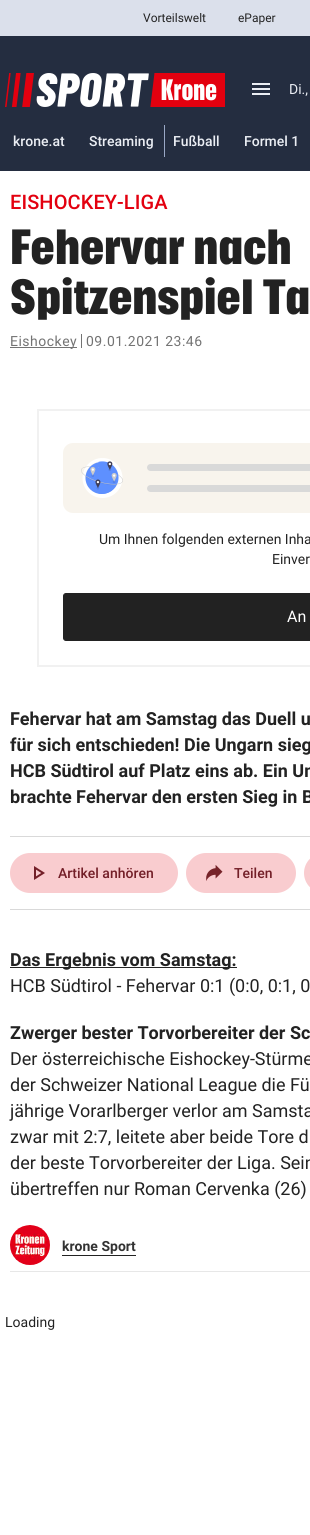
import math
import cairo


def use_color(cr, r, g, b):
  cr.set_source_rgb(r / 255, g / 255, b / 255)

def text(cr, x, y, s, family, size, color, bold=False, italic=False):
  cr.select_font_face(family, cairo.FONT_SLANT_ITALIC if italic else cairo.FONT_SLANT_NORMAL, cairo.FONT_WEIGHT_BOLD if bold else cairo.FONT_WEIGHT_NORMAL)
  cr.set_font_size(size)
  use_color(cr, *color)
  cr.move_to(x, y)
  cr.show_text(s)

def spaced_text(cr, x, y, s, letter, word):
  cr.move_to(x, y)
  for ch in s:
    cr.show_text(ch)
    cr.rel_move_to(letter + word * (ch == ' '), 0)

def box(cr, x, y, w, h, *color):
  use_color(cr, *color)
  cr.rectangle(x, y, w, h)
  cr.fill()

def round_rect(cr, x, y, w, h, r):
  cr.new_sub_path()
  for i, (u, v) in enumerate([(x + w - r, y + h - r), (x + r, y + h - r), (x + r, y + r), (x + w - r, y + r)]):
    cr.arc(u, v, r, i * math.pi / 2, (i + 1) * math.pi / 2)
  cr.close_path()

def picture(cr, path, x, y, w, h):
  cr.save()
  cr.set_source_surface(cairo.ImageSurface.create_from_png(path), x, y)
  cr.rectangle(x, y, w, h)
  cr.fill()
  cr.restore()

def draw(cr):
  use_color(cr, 255, 255, 255)
  cr.paint()
  box(cr, 0, 0, 310, 36, 219, 224, 235)
  box(cr, 0, 36, 310, 135, 36, 45, 64)
  picture(cr, "img_01.png", 5, 73, 220, 34)
  picture(cr, "img_02.png", 252, 83, 18, 12)
  box(cr, 164, 125, 1, 32, 154, 168, 198)
  box(cr, 10, 347, 67, 1, 115, 115, 115)
  box(cr, 81, 334, 1, 14, 115, 115, 115)
  cr.rectangle(38, 410, 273, 256)
  use_color(cr, 241, 241, 241)
  cr.stroke()
  use_color(cr, 248, 244, 237)
  round_rect(cr, 63, 443, 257, 70, 10)
  cr.fill()
  picture(cr, "img_03.png", 81, 458, 42, 40)
  use_color(cr, 217, 217, 217)
  round_rect(cr, 147, 464, 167, 7, 3.5)
  cr.fill()
  round_rect(cr, 147, 485, 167, 7, 3.5)
  cr.fill()
  use_color(cr, 34, 34, 34)
  round_rect(cr, 63.5, 593.5, 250, 47, 2.5)
  cr.fill_preserve()
  cr.set_line_width(1)
  cr.stroke()
  box(cr, 10, 836, 300, 1, 217, 217, 217)
  box(cr, 10, 909, 300, 1, 217, 217, 217)
  use_color(cr, 249, 204, 207)
  round_rect(cr, 10, 853, 168, 40, 20)
  cr.fill()
  picture(cr, "img_04.png", 34, 866, 11, 14)
  round_rect(cr, 186, 853, 110, 40, 20)
  cr.fill()
  picture(cr, "img_05.png", 206, 865, 17, 16)
  round_rect(cr, 304, 853, 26, 40, 20)
  cr.fill()
  box(cr, 10, 967, 227, 1, 34, 34, 34)
  box(cr, 10, 1271, 300, 1, 231, 231, 231)
  picture(cr, "img_06.png", 10, 1225, 40, 40)
  box(cr, 62, 1255, 74, 1, 34, 34, 34)
  text(cr, 143, 22, "Vorteilswelt", "Roboto", 12, (34, 34, 34))
  text(cr, 238, 22, "ePaper", "Roboto", 12, (34, 34, 34))
  text(cr, 289, 94, "Di.,", "Roboto", 14, (235, 238, 244))
  text(cr, 13, 146, "krone.at", "Roboto Medium", 14, (235, 238, 244))
  text(cr, 89, 146, "Streaming", "Roboto Medium", 14, (235, 238, 244))
  text(cr, 173, 146, "Fußball", "Roboto Medium", 14, (235, 238, 244))
  text(cr, 244, 146, "Formel 1", "Roboto Medium", 14, (235, 238, 244))
  cr.set_font_size(20)
  use_color(cr, 227, 0, 15)
  spaced_text(cr, 10, 209, "EISHOCKEY-LIGA", 0.1, 0)
  cr.select_font_face("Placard", cairo.FONT_SLANT_NORMAL, cairo.FONT_WEIGHT_BOLD)
  cr.set_font_size(48)
  use_color(cr, 34, 34, 34)
  spaced_text(cr, 10, 264, "Fehervar nach", 0.1, 0)
  spaced_text(cr, 10, 314, "Spitzenspiel Ta", 0.1, 0)
  cr.select_font_face("Roboto")
  cr.set_font_size(14)
  use_color(cr, 115, 115, 115)
  spaced_text(cr, 10, 346, "Eishockey", 0.5, 0)
  spaced_text(cr, 86, 346, "09.01.2021 23:46", 0.5, 0)
  text(cr, 99, 544, "Um Ihnen folgenden externen Inha", "Roboto", 14, (34, 34, 34))
  text(cr, 272, 564, "Einver", "Roboto", 14, (34, 34, 34))
  text(cr, 287, 622, "An", "Roboto", 16, (255, 255, 255))
  text(cr, 10, 725, "Fehervar hat am Samstag das Duell u", "Roboto", 18, (34, 34, 34), bold=True)
  text(cr, 10, 751, "für sich entschieden! Die Ungarn sieg", "Roboto", 18, (34, 34, 34), bold=True)
  text(cr, 10, 777, "HCB Südtirol auf Platz eins ab. Ein Un", "Roboto", 18, (34, 34, 34), bold=True)
  text(cr, 10, 803, "brachte Fehervar den ersten Sieg in B", "Roboto", 18, (34, 34, 34), bold=True)
  text(cr, 58, 878, "Artikel anhören", "Roboto Medium", 14, (115, 31, 40))
  text(cr, 234, 878, "Teilen", "Roboto Medium", 14, (115, 31, 40))
  text(cr, 10, 966, "Das Ergebnis vom Samstag:", "Roboto", 18, (34, 34, 34), bold=True)
  text(cr, 10, 992, "HCB Südtirol - Fehervar 0:1 (0:0, 0:1, 0", "Roboto", 18, (34, 34, 34))
  text(cr, 10, 1039, "Zwerger bester Torvorbereiter der Sc", "Roboto", 18, (34, 34, 34), bold=True)
  text(cr, 10, 1065, "Der österreichische Eishockey-Stürme", "Roboto", 18, (34, 34, 34))
  text(cr, 10, 1091, "der Schweizer National League die Fü", "Roboto", 18, (34, 34, 34))
  text(cr, 10, 1117, "jährige Vorarlberger verlor am Samsta", "Roboto", 18, (34, 34, 34))
  text(cr, 10, 1143, "zwar mit 2:7, leitete aber beide Tore d", "Roboto", 18, (34, 34, 34))
  text(cr, 10, 1169, "der beste Torvorbereiter der Liga. Sein", "Roboto", 18, (34, 34, 34))
  text(cr, 10, 1195, "übertreffen nur Roman Cervenka (26)", "Roboto", 18, (34, 34, 34))
  text(cr, 62, 1251, "krone Sport", "Roboto", 14, (51, 51, 51), bold=True)
  text(cr, 5, 1327, "Loading", "Roboto", 14, (34, 34, 34))


surface = cairo.ImageSurface(cairo.FORMAT_RGB24, 310, 1535)
cr = cairo.Context(surface)
options = cairo.FontOptions()
options.set_hint_metrics(cairo.HINT_METRICS_OFF)
options.set_hint_style(cairo.HINT_STYLE_NONE)
cr.set_font_options(options)
cr.set_miter_limit(4)
draw(cr)
surface.write_to_png("out.png")
